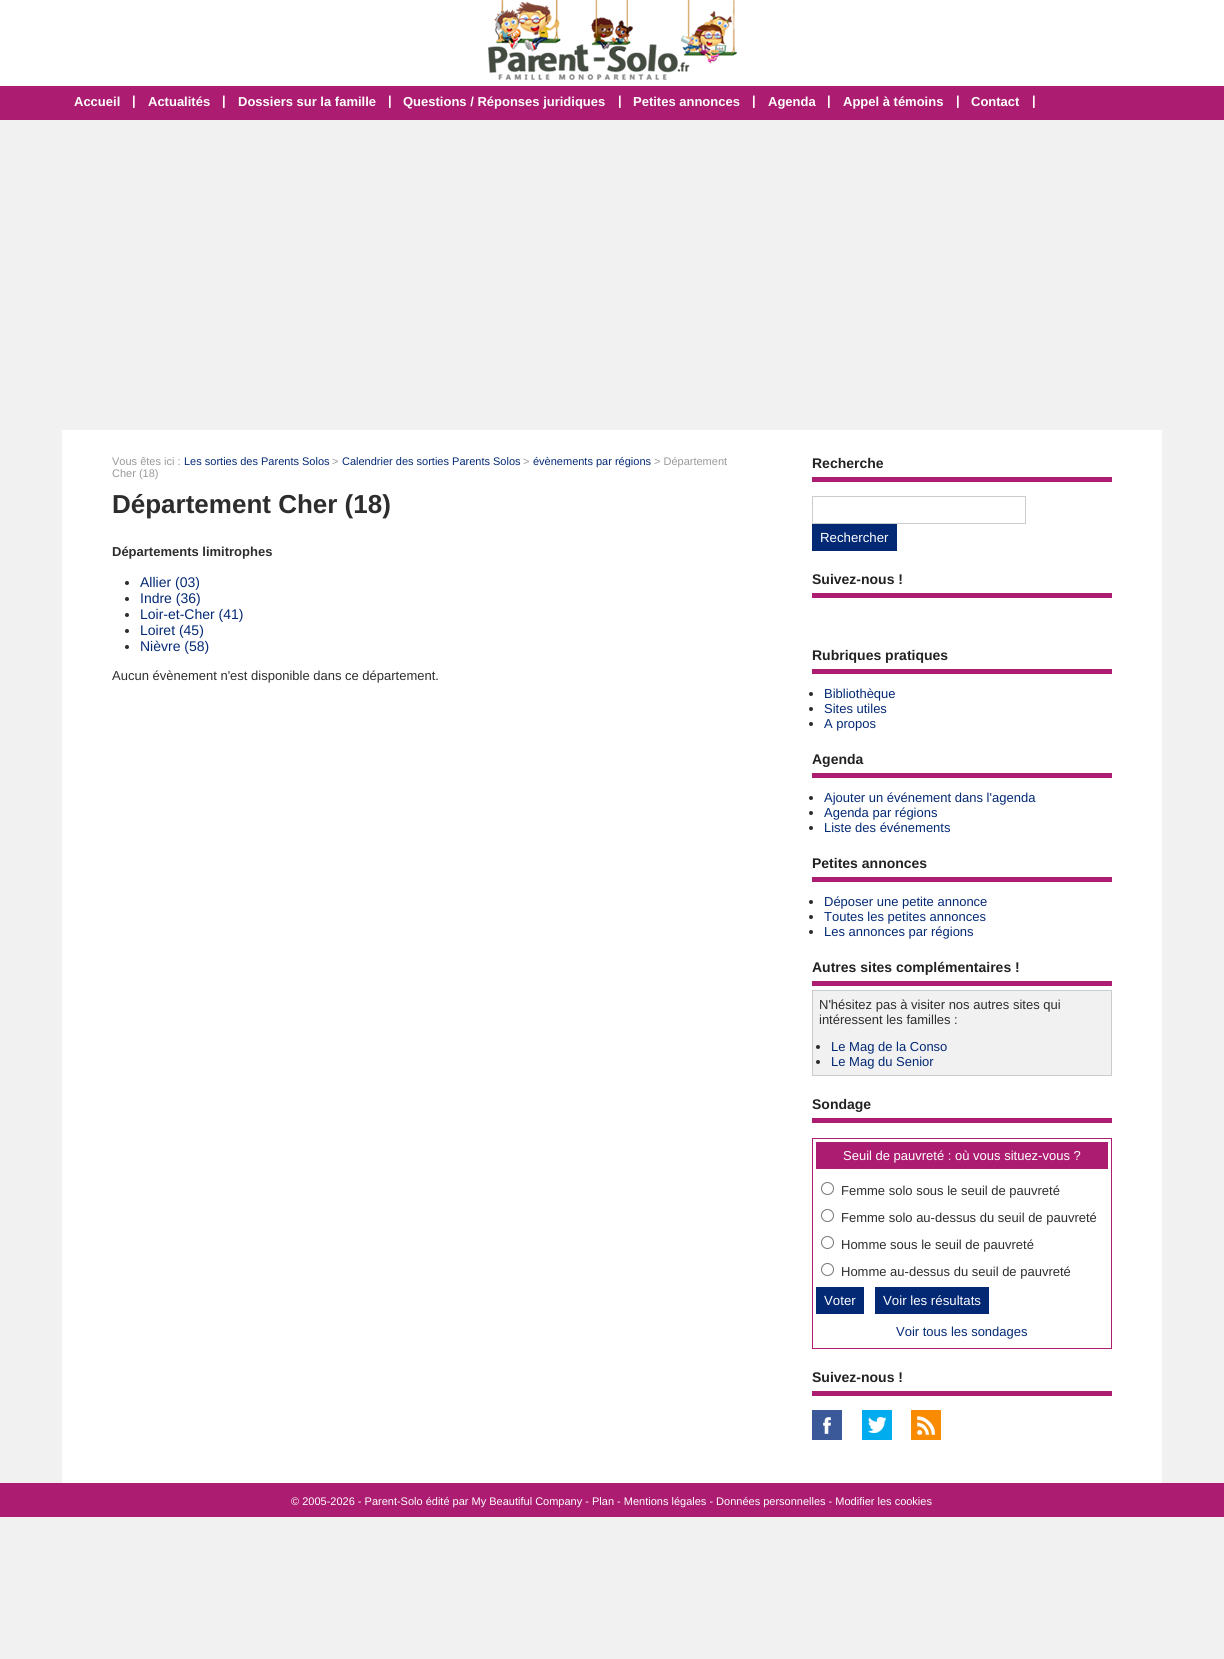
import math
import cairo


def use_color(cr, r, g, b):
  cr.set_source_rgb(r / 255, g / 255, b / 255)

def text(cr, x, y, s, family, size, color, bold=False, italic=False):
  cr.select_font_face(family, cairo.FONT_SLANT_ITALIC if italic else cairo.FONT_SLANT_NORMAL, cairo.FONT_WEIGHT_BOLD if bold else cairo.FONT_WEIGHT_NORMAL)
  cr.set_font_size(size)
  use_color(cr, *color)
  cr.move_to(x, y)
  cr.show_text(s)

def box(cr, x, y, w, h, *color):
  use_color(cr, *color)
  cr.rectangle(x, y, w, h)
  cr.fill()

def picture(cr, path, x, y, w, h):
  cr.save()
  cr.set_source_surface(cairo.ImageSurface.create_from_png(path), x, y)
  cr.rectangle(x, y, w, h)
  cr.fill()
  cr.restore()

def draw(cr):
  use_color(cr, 241, 241, 241)
  cr.paint()
  box(cr, 0, 0, 1224, 86, 255, 255, 255)
  picture(cr, "img_01.png", 488, 0, 249, 80)
  box(cr, 0, 86, 1224, 34, 172, 29, 114)
  box(cr, 62, 430, 1100, 1053, 255, 255, 255)
  use_color(cr, 45, 45, 45)
  cr.arc(127, 583, 2, 0, 2 * math.pi)
  cr.fill()
  cr.arc(127, 599, 2, 0, 2 * math.pi)
  cr.fill()
  cr.arc(127, 615, 2, 0, 2 * math.pi)
  cr.fill()
  cr.arc(127, 631, 2, 0, 2 * math.pi)
  cr.fill()
  cr.arc(127, 647, 2, 0, 2 * math.pi)
  cr.fill()
  box(cr, 812, 477, 300, 5, 172, 29, 114)
  cr.rectangle(812.5, 496.5, 213, 27)
  use_color(cr, 204, 204, 204)
  cr.set_line_width(1)
  cr.stroke()
  box(cr, 812, 524, 85, 27, 3, 41, 117)
  box(cr, 812, 593, 300, 5, 172, 29, 114)
  box(cr, 812, 669, 300, 5, 172, 29, 114)
  use_color(cr, 45, 45, 45)
  cr.arc(811, 694, 2, 0, 2 * math.pi)
  cr.fill()
  cr.arc(811, 709, 2, 0, 2 * math.pi)
  cr.fill()
  cr.arc(811, 724, 2, 0, 2 * math.pi)
  cr.fill()
  box(cr, 812, 773, 300, 5, 172, 29, 114)
  use_color(cr, 45, 45, 45)
  cr.arc(811, 798, 2, 0, 2 * math.pi)
  cr.fill()
  cr.arc(811, 813, 2, 0, 2 * math.pi)
  cr.fill()
  cr.arc(811, 828, 2, 0, 2 * math.pi)
  cr.fill()
  box(cr, 812, 877, 300, 5, 172, 29, 114)
  use_color(cr, 45, 45, 45)
  cr.arc(811, 902, 2, 0, 2 * math.pi)
  cr.fill()
  cr.arc(811, 917, 2, 0, 2 * math.pi)
  cr.fill()
  cr.arc(811, 932, 2, 0, 2 * math.pi)
  cr.fill()
  box(cr, 812, 981, 300, 5, 172, 29, 114)
  use_color(cr, 241, 241, 241)
  cr.rectangle(812.5, 990.5, 299, 85)
  cr.fill_preserve()
  use_color(cr, 204, 204, 204)
  cr.stroke()
  use_color(cr, 45, 45, 45)
  cr.arc(818, 1047, 2, 0, 2 * math.pi)
  cr.fill()
  cr.arc(818, 1062, 2, 0, 2 * math.pi)
  cr.fill()
  box(cr, 812, 1118, 300, 5, 172, 29, 114)
  cr.rectangle(812.5, 1138.5, 299, 210)
  cr.stroke()
  box(cr, 816, 1142, 292, 27, 172, 29, 114)
  cr.arc(827.5, 1188.5, 6, 0, 2 * math.pi)
  use_color(cr, 118, 118, 118)
  cr.stroke()
  cr.arc(827.5, 1215.5, 6, 0, 2 * math.pi)
  cr.stroke()
  cr.arc(827.5, 1242.5, 6, 0, 2 * math.pi)
  cr.stroke()
  cr.arc(827.5, 1269.5, 6, 0, 2 * math.pi)
  cr.stroke()
  box(cr, 816, 1287, 48, 27, 3, 41, 117)
  box(cr, 875, 1287, 114, 27, 3, 41, 117)
  box(cr, 812, 1391, 300, 5, 172, 29, 114)
  picture(cr, "img_02.png", 812, 1410, 30, 30)
  picture(cr, "img_03.png", 862, 1410, 30, 30)
  picture(cr, "img_04.png", 911, 1410, 30, 30)
  box(cr, 0, 1483, 1224, 34, 172, 29, 114)
  text(cr, 74, 106, "Accueil", "Liberation Sans", 13, (255, 255, 255), bold=True)
  text(cr, 132, 105, "|", "Liberation Sans", 13, (255, 255, 255), bold=True)
  text(cr, 148, 106, "Actualités", "Liberation Sans", 13, (255, 255, 255), bold=True)
  text(cr, 222, 105, "|", "Liberation Sans", 13, (255, 255, 255), bold=True)
  text(cr, 238, 106, "Dossiers sur la famille", "Liberation Sans", 13, (255, 255, 255), bold=True)
  text(cr, 388, 105, "|", "Liberation Sans", 13, (255, 255, 255), bold=True)
  text(cr, 403, 106, "Questions / Réponses juridiques", "Liberation Sans", 13, (255, 255, 255), bold=True)
  text(cr, 618, 105, "|", "Liberation Sans", 13, (255, 255, 255), bold=True)
  text(cr, 633, 106, "Petites annonces", "Liberation Sans", 13, (255, 255, 255), bold=True)
  text(cr, 752, 105, "|", "Liberation Sans", 13, (255, 255, 255), bold=True)
  text(cr, 768, 106, "Agenda", "Liberation Sans", 13, (255, 255, 255), bold=True)
  text(cr, 827, 105, "|", "Liberation Sans", 13, (255, 255, 255), bold=True)
  text(cr, 843, 106, "Appel à témoins", "Liberation Sans", 13, (255, 255, 255), bold=True)
  text(cr, 956, 105, "|", "Liberation Sans", 13, (255, 255, 255), bold=True)
  text(cr, 971, 106, "Contact", "Liberation Sans", 13, (255, 255, 255), bold=True)
  text(cr, 1032, 105, "|", "Liberation Sans", 13, (255, 255, 255), bold=True)
  text(cr, 112, 465, "Vous êtes ici :", "Liberation Sans", 11, (153, 153, 153))
  text(cr, 184, 465, "Les sorties des Parents Solos", "Liberation Sans", 11, (3, 41, 117))
  text(cr, 332, 465, ">", "Liberation Sans", 11, (153, 153, 153))
  text(cr, 342, 465, "Calendrier des sorties Parents Solos", "Liberation Sans", 11, (3, 41, 117))
  text(cr, 523, 465, ">", "Liberation Sans", 11, (153, 153, 153))
  text(cr, 533, 465, "évènements par régions", "Liberation Sans", 11, (3, 41, 117))
  text(cr, 654, 465, "> Département", "Liberation Sans", 11, (153, 153, 153))
  text(cr, 112, 477, "Cher (18)", "Liberation Sans", 11, (153, 153, 153))
  text(cr, 112, 513, "Département Cher (18)", "Liberation Sans", 26, (45, 45, 45), bold=True)
  text(cr, 112, 556, "Départements limitrophes", "Liberation Sans", 13, (45, 45, 45), bold=True)
  text(cr, 140, 587, "Allier (03)", "Liberation Sans", 14, (3, 41, 117))
  text(cr, 140, 603, "Indre (36)", "Liberation Sans", 14, (3, 41, 117))
  text(cr, 140, 619, "Loir-et-Cher (41)", "Liberation Sans", 14, (3, 41, 117))
  text(cr, 140, 635, "Loiret (45)", "Liberation Sans", 14, (3, 41, 117))
  text(cr, 140, 651, "Nièvre (58)", "Liberation Sans", 14, (3, 41, 117))
  text(cr, 112, 680, "Aucun évènement n'est disponible dans ce département.", "Liberation Sans", 13, (45, 45, 45))
  text(cr, 812, 468, "Recherche", "Liberation Sans", 14, (34, 34, 34), bold=True)
  text(cr, 820, 542, "Rechercher", "Liberation Sans", 13.25, (255, 255, 255))
  text(cr, 812, 584, "Suivez-nous !", "Liberation Sans", 14, (34, 34, 34), bold=True)
  text(cr, 812, 660, "Rubriques pratiques", "Liberation Sans", 14, (34, 34, 34), bold=True)
  text(cr, 824, 698, "Bibliothèque", "Liberation Sans", 13, (3, 41, 117))
  text(cr, 824, 713, "Sites utiles", "Liberation Sans", 13, (3, 41, 117))
  text(cr, 824, 728, "A propos", "Liberation Sans", 13, (3, 41, 117))
  text(cr, 812, 764, "Agenda", "Liberation Sans", 14, (34, 34, 34), bold=True)
  text(cr, 824, 802, "Ajouter un événement dans l'agenda", "Liberation Sans", 13, (3, 41, 117))
  text(cr, 824, 817, "Agenda par régions", "Liberation Sans", 13, (3, 41, 117))
  text(cr, 824, 832, "Liste des événements", "Liberation Sans", 13, (3, 41, 117))
  text(cr, 812, 868, "Petites annonces", "Liberation Sans", 14, (34, 34, 34), bold=True)
  text(cr, 824, 906, "Déposer une petite annonce", "Liberation Sans", 13, (3, 41, 117))
  text(cr, 824, 921, "Toutes les petites annonces", "Liberation Sans", 13, (3, 41, 117))
  text(cr, 824, 936, "Les annonces par régions", "Liberation Sans", 13, (3, 41, 117))
  text(cr, 812, 972, "Autres sites complémentaires !", "Liberation Sans", 14, (34, 34, 34), bold=True)
  text(cr, 819, 1009, "N'hésitez pas à visiter nos autres sites qui", "Liberation Sans", 13, (45, 45, 45))
  text(cr, 819, 1024, "intéressent les familles :", "Liberation Sans", 13, (45, 45, 45))
  text(cr, 831, 1051, "Le Mag de la Conso", "Liberation Sans", 13, (3, 41, 117))
  text(cr, 831, 1066, "Le Mag du Senior", "Liberation Sans", 13, (3, 41, 117))
  text(cr, 812, 1109, "Sondage", "Liberation Sans", 14, (34, 34, 34), bold=True)
  text(cr, 843, 1160, "Seuil de pauvreté : où vous situez-vous ?", "Liberation Sans", 13, (255, 255, 255))
  text(cr, 841, 1195, "Femme solo sous le seuil de pauvreté", "Liberation Sans", 13, (45, 45, 45))
  text(cr, 841, 1222, "Femme solo au-dessus du seuil de pauvreté", "Liberation Sans", 13, (45, 45, 45))
  text(cr, 841, 1249, "Homme sous le seuil de pauvreté", "Liberation Sans", 13, (45, 45, 45))
  text(cr, 841, 1276, "Homme au-dessus du seuil de pauvreté", "Liberation Sans", 13, (45, 45, 45))
  text(cr, 824, 1305, "Voter", "Liberation Sans", 13.25, (255, 255, 255))
  text(cr, 883, 1305, "Voir les résultats", "Liberation Sans", 13.25, (255, 255, 255))
  text(cr, 896, 1336, "Voir tous les sondages", "Liberation Sans", 13, (3, 41, 117))
  text(cr, 812, 1382, "Suivez-nous !", "Liberation Sans", 14, (34, 34, 34), bold=True)
  text(cr, 291, 1505, "© 2005-2026 - Parent-Solo édité par My Beautiful Company - Plan - Mentions légales - Données personnelles - Modifier les cookies", "Liberation Sans", 11, (255, 255, 255))


surface = cairo.ImageSurface(cairo.FORMAT_RGB24, 1224, 1659)
cr = cairo.Context(surface)
options = cairo.FontOptions()
options.set_hint_metrics(cairo.HINT_METRICS_OFF)
options.set_hint_style(cairo.HINT_STYLE_NONE)
cr.set_font_options(options)
cr.set_miter_limit(4)
draw(cr)
surface.write_to_png("out.png")
